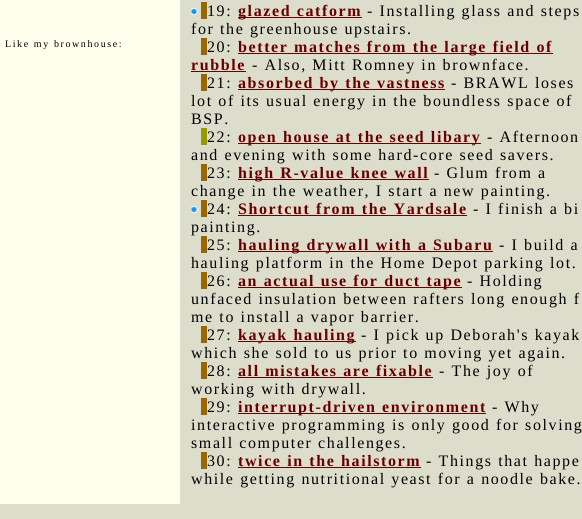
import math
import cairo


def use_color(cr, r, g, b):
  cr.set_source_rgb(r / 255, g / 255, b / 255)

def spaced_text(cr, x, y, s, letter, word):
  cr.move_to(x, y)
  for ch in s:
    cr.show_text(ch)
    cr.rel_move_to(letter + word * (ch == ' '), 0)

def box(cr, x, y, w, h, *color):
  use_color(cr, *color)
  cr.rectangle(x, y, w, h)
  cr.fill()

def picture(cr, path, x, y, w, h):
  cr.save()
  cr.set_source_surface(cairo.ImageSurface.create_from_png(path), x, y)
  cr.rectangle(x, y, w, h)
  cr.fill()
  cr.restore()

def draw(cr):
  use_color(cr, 221, 221, 204)
  cr.paint()
  box(cr, 0, 0, 180, 504, 255, 255, 238)
  picture(cr, "img_01.png", 191, 8, 7, 7)
  box(cr, 201, 2, 6, 17, 153, 102, 0)
  box(cr, 238, 17, 124, 1, 102, 0, 0)
  box(cr, 201, 38, 6, 17, 153, 102, 0)
  box(cr, 238, 53, 315, 1, 102, 0, 0)
  box(cr, 191, 71, 55, 1, 102, 0, 0)
  box(cr, 201, 74, 6, 17, 153, 102, 0)
  box(cr, 238, 89, 207, 1, 102, 0, 0)
  box(cr, 201, 128, 6, 17, 153, 153, 0)
  box(cr, 238, 143, 243, 1, 102, 0, 0)
  box(cr, 201, 164, 6, 17, 153, 102, 0)
  box(cr, 238, 179, 191, 1, 102, 0, 0)
  picture(cr, "img_01.png", 191, 206, 7, 7)
  box(cr, 201, 200, 6, 17, 153, 102, 0)
  box(cr, 238, 215, 229, 1, 102, 0, 0)
  box(cr, 201, 236, 6, 17, 153, 102, 0)
  box(cr, 238, 251, 255, 1, 102, 0, 0)
  box(cr, 201, 272, 6, 17, 153, 102, 0)
  box(cr, 238, 287, 224, 1, 102, 0, 0)
  box(cr, 201, 326, 6, 17, 153, 102, 0)
  box(cr, 238, 341, 118, 1, 102, 0, 0)
  box(cr, 201, 362, 6, 17, 153, 102, 0)
  box(cr, 238, 377, 195, 1, 102, 0, 0)
  box(cr, 201, 398, 6, 17, 153, 102, 0)
  box(cr, 238, 413, 248, 1, 102, 0, 0)
  box(cr, 201, 452, 6, 17, 153, 102, 0)
  box(cr, 238, 467, 183, 1, 102, 0, 0)
  cr.select_font_face("Liberation Serif")
  cr.set_font_size(10)
  use_color(cr, 0, 0, 0)
  spaced_text(cr, 5, 47, "Like my brownhouse:", 1.6, 0)
  cr.set_font_size(16)
  spaced_text(cr, 207, 16, "19:", 1.6, 0)
  cr.select_font_face("Liberation Serif", cairo.FONT_SLANT_NORMAL, cairo.FONT_WEIGHT_BOLD)
  use_color(cr, 102, 0, 0)
  spaced_text(cr, 238, 16, "glazed catform", 1.6, 0)
  cr.select_font_face("Liberation Serif")
  use_color(cr, 0, 0, 0)
  spaced_text(cr, 367, 16, "- Installing glass and steps", 1.6, 0)
  spaced_text(cr, 191, 34, "for the greenhouse upstairs.", 1.6, 0)
  spaced_text(cr, 207, 52, "20:", 1.6, 0)
  cr.select_font_face("Liberation Serif", cairo.FONT_SLANT_NORMAL, cairo.FONT_WEIGHT_BOLD)
  use_color(cr, 102, 0, 0)
  spaced_text(cr, 238, 52, "better matches from the large field of", 1.6, 0)
  spaced_text(cr, 191, 70, "rubble", 1.6, 0)
  cr.select_font_face("Liberation Serif")
  use_color(cr, 0, 0, 0)
  spaced_text(cr, 252, 70, "- Also, Mitt Romney in brownface.", 1.6, 0)
  spaced_text(cr, 207, 88, "21:", 1.6, 0)
  cr.select_font_face("Liberation Serif", cairo.FONT_SLANT_NORMAL, cairo.FONT_WEIGHT_BOLD)
  use_color(cr, 102, 0, 0)
  spaced_text(cr, 238, 88, "absorbed by the vastness", 1.6, 0)
  cr.select_font_face("Liberation Serif")
  use_color(cr, 0, 0, 0)
  spaced_text(cr, 451, 88, "- BRAWL loses", 1.6, 0)
  spaced_text(cr, 191, 106, "lot of its usual energy in the boundless space of", 1.6, 0)
  spaced_text(cr, 191, 124, "BSP.", 1.6, 0)
  spaced_text(cr, 207, 142, "22:", 1.6, 0)
  cr.select_font_face("Liberation Serif", cairo.FONT_SLANT_NORMAL, cairo.FONT_WEIGHT_BOLD)
  use_color(cr, 102, 0, 0)
  spaced_text(cr, 238, 142, "open house at the seed libary", 1.6, 0)
  cr.select_font_face("Liberation Serif")
  use_color(cr, 0, 0, 0)
  spaced_text(cr, 487, 142, "- Afternoon", 1.6, 0)
  spaced_text(cr, 191, 160, "and evening with some hard-core seed savers.", 1.6, 0)
  spaced_text(cr, 207, 178, "23:", 1.6, 0)
  cr.select_font_face("Liberation Serif", cairo.FONT_SLANT_NORMAL, cairo.FONT_WEIGHT_BOLD)
  use_color(cr, 102, 0, 0)
  spaced_text(cr, 238, 178, "high R-value knee wall", 1.6, 0)
  cr.select_font_face("Liberation Serif")
  use_color(cr, 0, 0, 0)
  spaced_text(cr, 434, 178, "- Glum from a", 1.6, 0)
  spaced_text(cr, 191, 196, "change in the weather, I start a new painting.", 1.6, 0)
  spaced_text(cr, 207, 214, "24:", 1.6, 0)
  cr.select_font_face("Liberation Serif", cairo.FONT_SLANT_NORMAL, cairo.FONT_WEIGHT_BOLD)
  use_color(cr, 102, 0, 0)
  spaced_text(cr, 238, 214, "Shortcut from the Yardsale", 1.6, 0)
  cr.select_font_face("Liberation Serif")
  use_color(cr, 0, 0, 0)
  spaced_text(cr, 473, 214, "- I finish a bi", 1.6, 0)
  spaced_text(cr, 191, 232, "painting.", 1.6, 0)
  spaced_text(cr, 207, 250, "25:", 1.6, 0)
  cr.select_font_face("Liberation Serif", cairo.FONT_SLANT_NORMAL, cairo.FONT_WEIGHT_BOLD)
  use_color(cr, 102, 0, 0)
  spaced_text(cr, 238, 250, "hauling drywall with a Subaru", 1.6, 0)
  cr.select_font_face("Liberation Serif")
  use_color(cr, 0, 0, 0)
  spaced_text(cr, 499, 250, "- I build a", 1.6, 0)
  spaced_text(cr, 191, 268, "hauling platform in the Home Depot parking lot.", 1.6, 0)
  spaced_text(cr, 207, 286, "26:", 1.6, 0)
  cr.select_font_face("Liberation Serif", cairo.FONT_SLANT_NORMAL, cairo.FONT_WEIGHT_BOLD)
  use_color(cr, 102, 0, 0)
  spaced_text(cr, 238, 286, "an actual use for duct tape", 1.6, 0)
  cr.select_font_face("Liberation Serif")
  use_color(cr, 0, 0, 0)
  spaced_text(cr, 467, 286, "- Holding", 1.6, 0)
  spaced_text(cr, 191, 304, "unfaced insulation between rafters long enough f", 1.6, 0)
  spaced_text(cr, 191, 322, "me to install a vapor barrier.", 1.6, 0)
  spaced_text(cr, 207, 340, "27:", 1.6, 0)
  cr.select_font_face("Liberation Serif", cairo.FONT_SLANT_NORMAL, cairo.FONT_WEIGHT_BOLD)
  use_color(cr, 102, 0, 0)
  spaced_text(cr, 238, 340, "kayak hauling", 1.6, 0)
  cr.select_font_face("Liberation Serif")
  use_color(cr, 0, 0, 0)
  spaced_text(cr, 361, 340, "- I pick up Deborah's kayak", 1.6, 0)
  spaced_text(cr, 191, 358, "which she sold to us prior to moving yet again.", 1.6, 0)
  spaced_text(cr, 207, 376, "28:", 1.6, 0)
  cr.select_font_face("Liberation Serif", cairo.FONT_SLANT_NORMAL, cairo.FONT_WEIGHT_BOLD)
  use_color(cr, 102, 0, 0)
  spaced_text(cr, 238, 376, "all mistakes are fixable", 1.6, 0)
  cr.select_font_face("Liberation Serif")
  use_color(cr, 0, 0, 0)
  spaced_text(cr, 439, 376, "- The joy of", 1.6, 0)
  spaced_text(cr, 191, 394, "working with drywall.", 1.6, 0)
  spaced_text(cr, 207, 412, "29:", 1.6, 0)
  cr.select_font_face("Liberation Serif", cairo.FONT_SLANT_NORMAL, cairo.FONT_WEIGHT_BOLD)
  use_color(cr, 102, 0, 0)
  spaced_text(cr, 238, 412, "interrupt-driven environment", 1.6, 0)
  cr.select_font_face("Liberation Serif")
  use_color(cr, 0, 0, 0)
  spaced_text(cr, 492, 412, "- Why", 1.6, 0)
  spaced_text(cr, 191, 430, "interactive programming is only good for solving", 1.6, 0)
  spaced_text(cr, 191, 448, "small computer challenges.", 1.6, 0)
  spaced_text(cr, 207, 466, "30:", 1.6, 0)
  cr.select_font_face("Liberation Serif", cairo.FONT_SLANT_NORMAL, cairo.FONT_WEIGHT_BOLD)
  use_color(cr, 102, 0, 0)
  spaced_text(cr, 238, 466, "twice in the hailstorm", 1.6, 0)
  cr.select_font_face("Liberation Serif")
  use_color(cr, 0, 0, 0)
  spaced_text(cr, 426, 466, "- Things that happe", 1.6, 0)
  spaced_text(cr, 191, 484, "while getting nutritional yeast for a noodle bake.", 1.6, 0)


surface = cairo.ImageSurface(cairo.FORMAT_RGB24, 582, 519)
cr = cairo.Context(surface)
options = cairo.FontOptions()
options.set_hint_metrics(cairo.HINT_METRICS_OFF)
options.set_hint_style(cairo.HINT_STYLE_NONE)
cr.set_font_options(options)
cr.set_miter_limit(4)
draw(cr)
surface.write_to_png("out.png")
